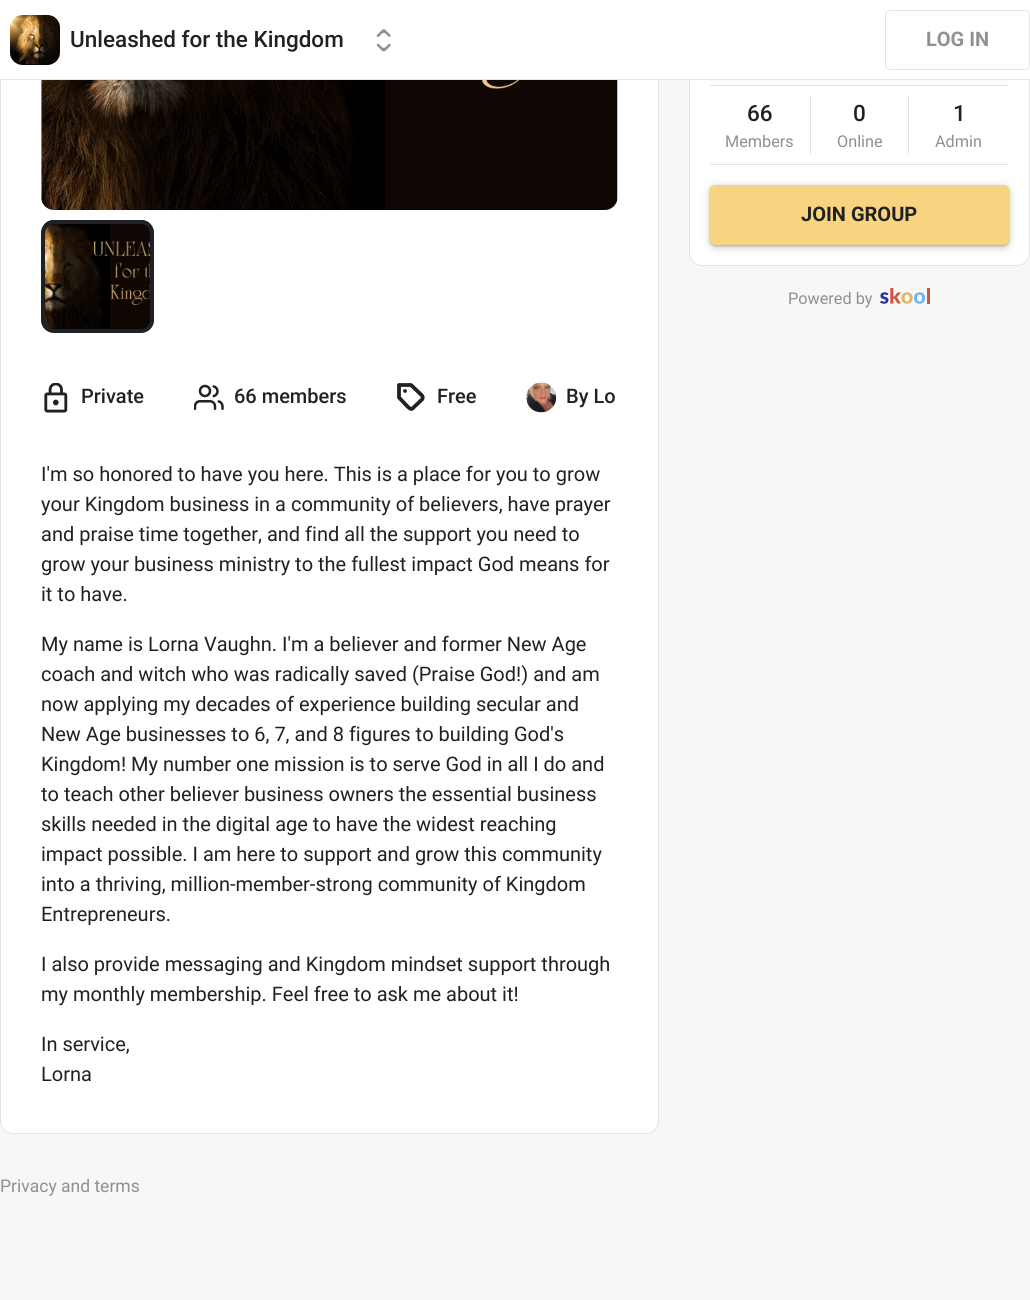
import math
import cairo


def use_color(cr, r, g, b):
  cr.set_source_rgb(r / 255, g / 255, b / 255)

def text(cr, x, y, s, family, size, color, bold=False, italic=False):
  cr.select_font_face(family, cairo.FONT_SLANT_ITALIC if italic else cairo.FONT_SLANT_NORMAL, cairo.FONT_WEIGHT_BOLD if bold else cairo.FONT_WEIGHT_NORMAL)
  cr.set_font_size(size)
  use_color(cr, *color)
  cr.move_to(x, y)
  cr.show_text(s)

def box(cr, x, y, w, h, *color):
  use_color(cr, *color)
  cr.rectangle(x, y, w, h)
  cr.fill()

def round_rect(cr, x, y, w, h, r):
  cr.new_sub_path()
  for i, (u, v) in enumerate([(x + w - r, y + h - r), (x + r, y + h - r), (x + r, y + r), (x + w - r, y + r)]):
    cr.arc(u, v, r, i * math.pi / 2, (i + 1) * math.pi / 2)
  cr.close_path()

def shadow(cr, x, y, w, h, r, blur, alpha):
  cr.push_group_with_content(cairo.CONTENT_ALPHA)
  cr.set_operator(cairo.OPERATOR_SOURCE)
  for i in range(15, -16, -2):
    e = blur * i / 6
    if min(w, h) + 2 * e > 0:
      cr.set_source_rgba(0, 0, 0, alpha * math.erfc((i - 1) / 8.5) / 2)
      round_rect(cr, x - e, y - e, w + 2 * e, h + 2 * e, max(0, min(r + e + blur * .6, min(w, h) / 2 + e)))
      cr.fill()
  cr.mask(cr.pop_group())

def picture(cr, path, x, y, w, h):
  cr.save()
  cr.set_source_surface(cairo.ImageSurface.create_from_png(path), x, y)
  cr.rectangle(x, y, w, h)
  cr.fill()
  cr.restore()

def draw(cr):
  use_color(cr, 248, 247, 245)
  cr.paint()
  use_color(cr, 255, 255, 255)
  round_rect(cr, 689.5, -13.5, 340, 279, 12.5)
  cr.fill_preserve()
  use_color(cr, 228, 228, 228)
  cr.set_line_width(1)
  cr.stroke()
  use_color(cr, 255, 255, 255)
  round_rect(cr, 0.5, -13.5, 658, 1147, 12.5)
  cr.fill_preserve()
  use_color(cr, 228, 228, 228)
  cr.stroke()
  box(cr, 0, 0, 1030, 79, 255, 255, 255)
  box(cr, 0, 79, 1030, 1, 228, 228, 228)
  picture(cr, "img_01.png", 10, 15, 50, 50)
  picture(cr, "img_02.png", 376, 29, 15, 23)
  round_rect(cr, 885.5, 10.5, 144, 59, 4.5)
  cr.stroke()
  box(cr, 710, 85, 299, 1, 228, 228, 228)
  box(cr, 710, 164, 299, 1, 228, 228, 228)
  box(cr, 908, 96, 1, 58, 228, 228, 228)
  box(cr, 810, 96, 1, 58, 228, 228, 228)
  use_color(cr, 0, 0, 0)
  shadow(cr, 710, 186, 299, 60, 5, 5, 0.1)
  use_color(cr, 60, 64, 67)
  shadow(cr, 710, 188, 299, 60, 5, 4, 0.15)
  shadow(cr, 710, 186, 299, 60, 5, 1, 0.32)
  use_color(cr, 248, 212, 129)
  round_rect(cr, 710, 185, 299, 60, 5)
  cr.fill()
  picture(cr, "img_03.png", 880, 288, 50, 16)
  picture(cr, "img_04.png", 41, 80, 577, 130)
  picture(cr, "img_05.png", 41, 220, 113, 113)
  round_rect(cr, 43, 222, 109, 109, 11)
  use_color(cr, 32, 33, 36)
  cr.set_line_width(4)
  cr.stroke()
  picture(cr, "img_06.png", 44, 383, 24, 30)
  picture(cr, "img_07.png", 194, 384, 30, 26)
  cr.new_path()
  cr.move_to(422, 399.5)
  cr.line_to(414.5, 406.5)
  cr.curve_to(411.5, 410, 411, 409.5, 407.5, 406.5)
  cr.line_to(399, 397.5)
  cr.line_to(399, 385)
  cr.line_to(411, 385)
  cr.line_to(422, 395.5)
  cr.curve_to(423, 396.5, 423, 398.5, 422, 399.5)
  cr.close_path()
  cr.move_to(405, 391)
  cr.line_to(405, 391)
  cr.set_line_width(3.8)
  cr.set_line_cap(cairo.LINE_CAP_ROUND)
  cr.set_line_join(cairo.LINE_JOIN_ROUND)
  cr.stroke()
  picture(cr, "img_08.png", 526, 382, 31, 31)
  text(cr, 70, 47, "Unleashed for the Kingdom", "Roboto Medium", 22.5, (32, 33, 36))
  text(cr, 926, 46, "LOG IN", "Roboto", 20, (144, 144, 144), bold=True)
  text(cr, 747, 121, "66", "Roboto Medium", 22.5, (32, 33, 36))
  text(cr, 725, 147, "Members", "Roboto", 16.25, (144, 144, 144))
  text(cr, 853, 121, "0", "Roboto Medium", 22.5, (32, 33, 36))
  text(cr, 837, 147, "Online", "Roboto", 16.25, (144, 144, 144))
  text(cr, 953, 121, "1", "Roboto Medium", 22.5, (32, 33, 36))
  text(cr, 935, 147, "Admin", "Roboto", 16.25, (144, 144, 144))
  text(cr, 801, 221, "JOIN GROUP", "Roboto", 20, (32, 33, 36), bold=True)
  text(cr, 788, 304, "Powered by", "Roboto", 16.25, (144, 144, 144))
  text(cr, 81, 403, "Private", "Roboto Medium", 20, (32, 33, 36))
  text(cr, 234, 403, "66 members", "Roboto Medium", 20, (32, 33, 36))
  text(cr, 437, 403, "Free", "Roboto Medium", 20, (32, 33, 36))
  text(cr, 566, 403, "By Lo", "Roboto Medium", 20, (32, 33, 36))
  text(cr, 41, 481, "I'm so honored to have you here. This is a place for you to grow", "Roboto", 20, (32, 33, 36))
  text(cr, 41, 511, "your Kingdom business in a community of believers, have prayer", "Roboto", 20, (32, 33, 36))
  text(cr, 41, 541, "and praise time together, and find all the support you need to", "Roboto", 20, (32, 33, 36))
  text(cr, 41, 571, "grow your business ministry to the fullest impact God means for", "Roboto", 20, (32, 33, 36))
  text(cr, 41, 601, "it to have.", "Roboto", 20, (32, 33, 36))
  text(cr, 41, 651, "My name is Lorna Vaughn. I'm a believer and former New Age", "Roboto", 20, (32, 33, 36))
  text(cr, 41, 681, "coach and witch who was radically saved (Praise God!) and am", "Roboto", 20, (32, 33, 36))
  text(cr, 41, 711, "now applying my decades of experience building secular and", "Roboto", 20, (32, 33, 36))
  text(cr, 41, 741, "New Age businesses to 6, 7, and 8 figures to building God's", "Roboto", 20, (32, 33, 36))
  text(cr, 41, 771, "Kingdom! My number one mission is to serve God in all I do and", "Roboto", 20, (32, 33, 36))
  text(cr, 41, 801, "to teach other believer business owners the essential business", "Roboto", 20, (32, 33, 36))
  text(cr, 41, 831, "skills needed in the digital age to have the widest reaching", "Roboto", 20, (32, 33, 36))
  text(cr, 41, 861, "impact possible. I am here to support and grow this community", "Roboto", 20, (32, 33, 36))
  text(cr, 41, 891, "into a thriving, million-member-strong community of Kingdom", "Roboto", 20, (32, 33, 36))
  text(cr, 41, 921, "Entrepreneurs.", "Roboto", 20, (32, 33, 36))
  text(cr, 41, 971, "I also provide messaging and Kingdom mindset support through", "Roboto", 20, (32, 33, 36))
  text(cr, 41, 1001, "my monthly membership. Feel free to ask me about it!", "Roboto", 20, (32, 33, 36))
  text(cr, 41, 1051, "In service,", "Roboto", 20, (32, 33, 36))
  text(cr, 41, 1081, "Lorna", "Roboto", 20, (32, 33, 36))
  text(cr, 0, 1192, "Privacy and terms", "Roboto", 17.5, (144, 144, 144))


surface = cairo.ImageSurface(cairo.FORMAT_RGB24, 1030, 1300)
cr = cairo.Context(surface)
options = cairo.FontOptions()
options.set_hint_metrics(cairo.HINT_METRICS_OFF)
options.set_hint_style(cairo.HINT_STYLE_NONE)
cr.set_font_options(options)
cr.set_miter_limit(4)
draw(cr)
surface.write_to_png("out.png")
